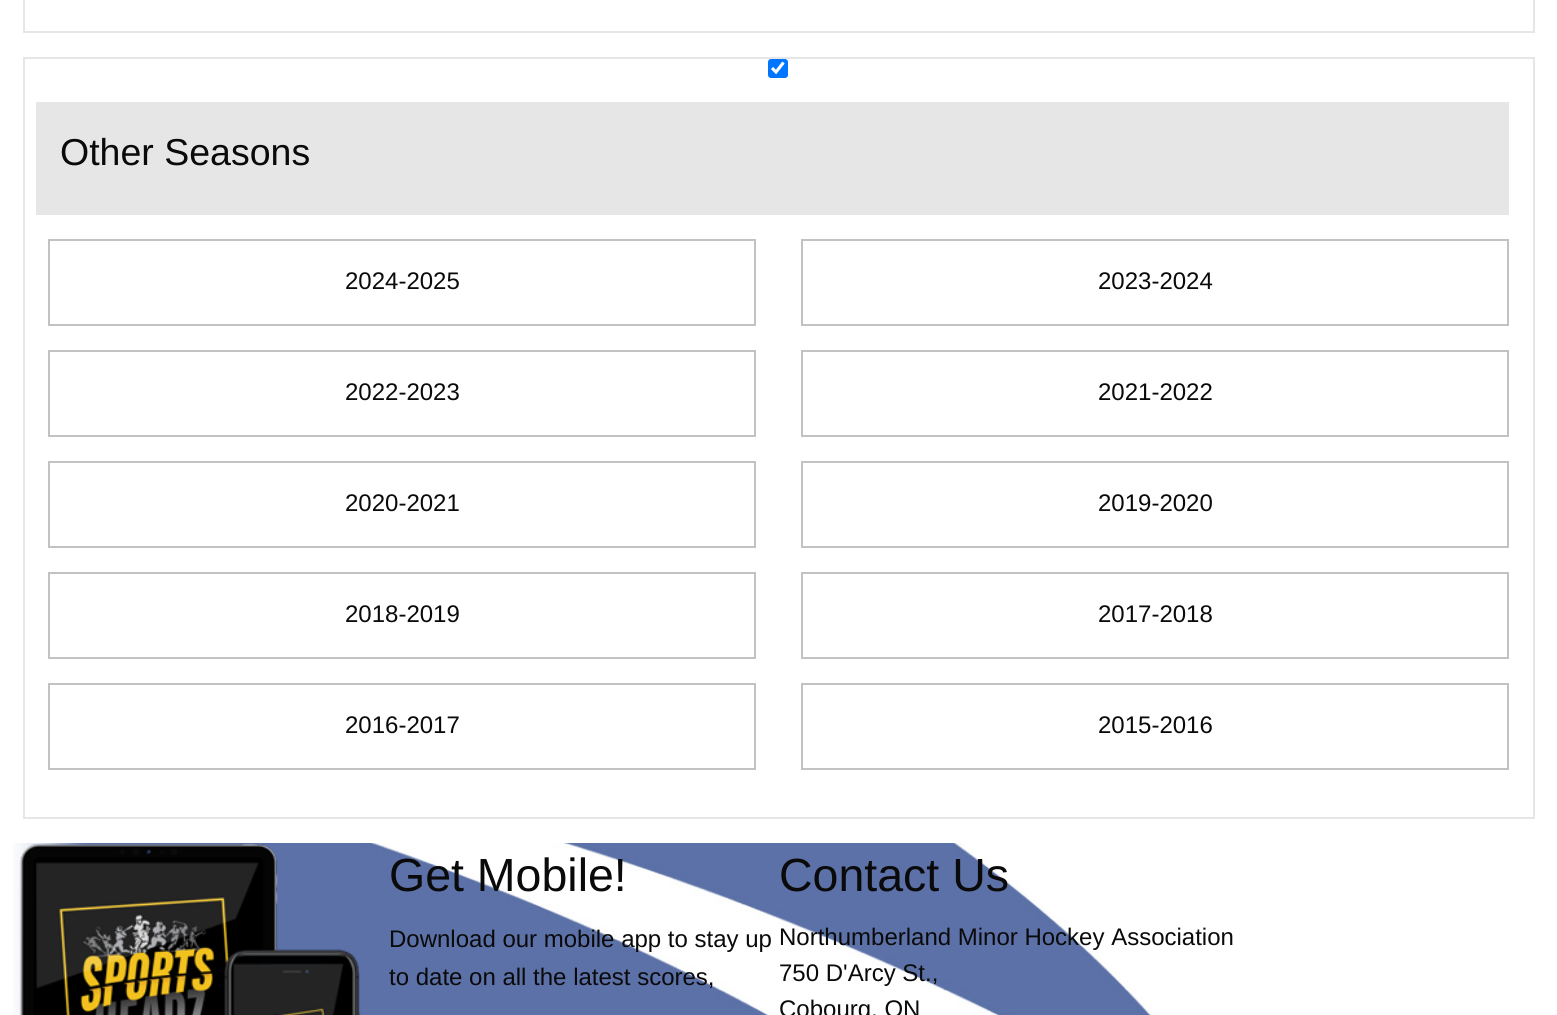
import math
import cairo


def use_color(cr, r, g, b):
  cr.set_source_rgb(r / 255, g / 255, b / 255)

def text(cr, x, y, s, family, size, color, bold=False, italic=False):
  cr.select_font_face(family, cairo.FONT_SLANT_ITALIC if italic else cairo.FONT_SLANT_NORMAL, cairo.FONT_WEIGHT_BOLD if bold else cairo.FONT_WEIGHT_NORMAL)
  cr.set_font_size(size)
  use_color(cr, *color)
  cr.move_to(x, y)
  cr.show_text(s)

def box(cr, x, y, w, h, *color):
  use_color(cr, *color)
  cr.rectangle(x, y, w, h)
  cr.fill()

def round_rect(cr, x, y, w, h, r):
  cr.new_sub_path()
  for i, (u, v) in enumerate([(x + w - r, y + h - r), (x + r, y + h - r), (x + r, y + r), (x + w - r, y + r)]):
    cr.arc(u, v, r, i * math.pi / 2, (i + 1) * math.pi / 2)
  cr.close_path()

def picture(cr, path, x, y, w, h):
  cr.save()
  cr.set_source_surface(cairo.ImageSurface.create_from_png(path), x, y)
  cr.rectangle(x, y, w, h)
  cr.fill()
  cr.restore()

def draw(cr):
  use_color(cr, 255, 255, 255)
  cr.paint()
  picture(cr, "img_01.png", 13, 843, 1509, 172)
  cr.rectangle(24, -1, 1510, 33)
  use_color(cr, 230, 230, 230)
  cr.stroke()
  cr.rectangle(24, 58, 1510, 760)
  cr.stroke()
  use_color(cr, 0, 117, 255)
  round_rect(cr, 768, 59, 20, 19, 3)
  cr.fill()
  cr.new_path()
  cr.move_to(772, 68)
  cr.line_to(776, 72)
  cr.line_to(783.5, 62.5)
  use_color(cr, 255, 255, 255)
  cr.set_line_width(3.1)
  cr.stroke()
  box(cr, 36, 102, 1473, 113, 230, 230, 230)
  cr.rectangle(49, 240, 706, 85)
  use_color(cr, 194, 194, 194)
  cr.set_line_width(2)
  cr.stroke()
  cr.rectangle(802, 240, 706, 85)
  cr.stroke()
  cr.rectangle(49, 351, 706, 85)
  cr.stroke()
  cr.rectangle(802, 351, 706, 85)
  cr.stroke()
  cr.rectangle(49, 462, 706, 85)
  cr.stroke()
  cr.rectangle(802, 462, 706, 85)
  cr.stroke()
  cr.rectangle(49, 573, 706, 85)
  cr.stroke()
  cr.rectangle(802, 573, 706, 85)
  cr.stroke()
  cr.rectangle(49, 684, 706, 85)
  cr.stroke()
  cr.rectangle(802, 684, 706, 85)
  cr.stroke()
  picture(cr, "img_02.png", 19, 843, 342, 172)
  text(cr, 60, 165, "Other Seasons", "Liberation Sans", 37.5, (10, 10, 10))
  text(cr, 345, 289, "2024-2025", "Liberation Sans", 24, (10, 10, 10))
  text(cr, 1098, 289, "2023-2024", "Liberation Sans", 24, (10, 10, 10))
  text(cr, 345, 400, "2022-2023", "Liberation Sans", 24, (10, 10, 10))
  text(cr, 1098, 400, "2021-2022", "Liberation Sans", 24, (10, 10, 10))
  text(cr, 345, 511, "2020-2021", "Liberation Sans", 24, (10, 10, 10))
  text(cr, 1098, 511, "2019-2020", "Liberation Sans", 24, (10, 10, 10))
  text(cr, 345, 622, "2018-2019", "Liberation Sans", 24, (10, 10, 10))
  text(cr, 1098, 622, "2017-2018", "Liberation Sans", 24, (10, 10, 10))
  text(cr, 345, 733, "2016-2017", "Liberation Sans", 24, (10, 10, 10))
  text(cr, 1098, 733, "2015-2016", "Liberation Sans", 24, (10, 10, 10))
  text(cr, 389, 891, "Get Mobile!", "Liberation Sans", 46.5, (10, 10, 10))
  text(cr, 389, 947, "Download our mobile app to stay up", "Liberation Sans", 24, (10, 10, 10))
  text(cr, 389, 985, "to date on all the latest scores,", "Liberation Sans", 24, (10, 10, 10))
  text(cr, 779, 891, "Contact Us", "Liberation Sans", 46.5, (10, 10, 10))
  text(cr, 779, 945, "Northumberland Minor Hockey Association", "Liberation Sans", 24, (10, 10, 10))
  text(cr, 779, 981, "750 D'Arcy St.,", "Liberation Sans", 24, (10, 10, 10))
  text(cr, 779, 1017, "Cobourg, ON", "Liberation Sans", 24, (10, 10, 10))


surface = cairo.ImageSurface(cairo.FORMAT_RGB24, 1557, 1015)
cr = cairo.Context(surface)
options = cairo.FontOptions()
options.set_hint_metrics(cairo.HINT_METRICS_OFF)
options.set_hint_style(cairo.HINT_STYLE_NONE)
cr.set_font_options(options)
cr.set_miter_limit(4)
draw(cr)
surface.write_to_png("out.png")
